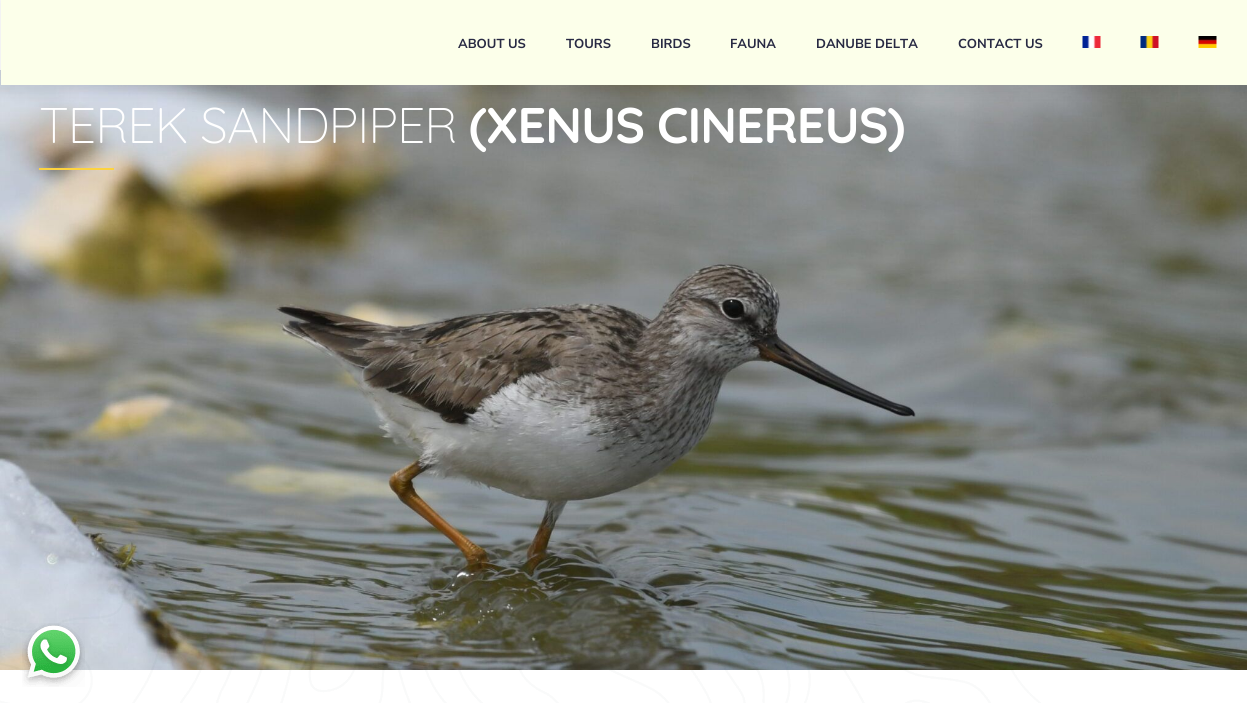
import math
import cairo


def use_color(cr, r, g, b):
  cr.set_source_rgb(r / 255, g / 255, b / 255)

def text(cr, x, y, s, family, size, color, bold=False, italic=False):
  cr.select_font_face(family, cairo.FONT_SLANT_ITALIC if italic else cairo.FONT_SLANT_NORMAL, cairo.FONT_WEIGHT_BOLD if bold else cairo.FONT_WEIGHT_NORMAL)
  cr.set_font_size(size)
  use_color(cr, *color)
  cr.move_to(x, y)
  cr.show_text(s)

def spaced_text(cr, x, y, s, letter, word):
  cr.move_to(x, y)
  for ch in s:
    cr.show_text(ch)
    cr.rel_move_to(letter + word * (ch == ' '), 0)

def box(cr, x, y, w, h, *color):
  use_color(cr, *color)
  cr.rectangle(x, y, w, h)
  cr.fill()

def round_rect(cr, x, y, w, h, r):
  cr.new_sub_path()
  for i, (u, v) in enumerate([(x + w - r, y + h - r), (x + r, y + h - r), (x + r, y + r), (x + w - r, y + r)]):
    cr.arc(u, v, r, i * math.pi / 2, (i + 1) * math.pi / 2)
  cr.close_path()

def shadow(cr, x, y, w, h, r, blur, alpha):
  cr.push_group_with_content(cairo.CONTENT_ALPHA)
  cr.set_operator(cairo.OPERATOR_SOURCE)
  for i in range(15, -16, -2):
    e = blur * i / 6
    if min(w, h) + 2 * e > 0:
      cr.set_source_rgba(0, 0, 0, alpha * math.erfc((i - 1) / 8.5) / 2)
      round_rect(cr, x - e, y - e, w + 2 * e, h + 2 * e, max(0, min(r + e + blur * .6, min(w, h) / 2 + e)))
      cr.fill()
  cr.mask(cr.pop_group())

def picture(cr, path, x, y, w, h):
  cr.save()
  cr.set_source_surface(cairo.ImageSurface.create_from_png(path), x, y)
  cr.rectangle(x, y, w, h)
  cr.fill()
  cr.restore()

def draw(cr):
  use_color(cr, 255, 255, 255)
  cr.paint()
  picture(cr, "img_04.png", 0, 70, 1247, 600)
  use_color(cr, 0, 0, 0)
  shadow(cr, -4, -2, 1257, 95, 0, 5, 0.06)
  box(cr, 1, 0, 1246, 85, 252, 255, 234)
  picture(cr, "img_01.png", 1082, 36, 19, 12)
  picture(cr, "img_02.png", 1140, 36, 19, 12)
  picture(cr, "img_03.png", 1198, 36, 19, 12)
  box(cr, 39, 168, 75, 2, 253, 211, 64)
  picture(cr, "img_05.png", 0, 600, 1041, 103)
  picture(cr, "img_06.png", 22, 623, 63, 64)
  text(cr, 458, 48, "ABOUT US", "Nunito Sans", 13, (40, 42, 67), bold=True)
  text(cr, 566, 48, "TOURS", "Nunito Sans", 13, (40, 42, 67), bold=True)
  text(cr, 651, 48, "BIRDS", "Nunito Sans", 13, (40, 42, 67), bold=True)
  text(cr, 730, 48, "FAUNA", "Nunito Sans", 13, (40, 42, 67), bold=True)
  text(cr, 816, 48, "DANUBE DELTA", "Nunito Sans", 13, (40, 42, 67), bold=True)
  text(cr, 958, 48, "CONTACT US", "Nunito Sans", 13, (40, 42, 67), bold=True)
  cr.select_font_face("Quicksand Light")
  cr.set_font_size(50)
  use_color(cr, 255, 255, 255)
  spaced_text(cr, 39, 143, "TEREK SANDPIPER", -1, 0)
  cr.select_font_face("Quicksand", cairo.FONT_SLANT_NORMAL, cairo.FONT_WEIGHT_BOLD)
  spaced_text(cr, 469, 143, "(XENUS CINEREUS)", -1, 0)


surface = cairo.ImageSurface(cairo.FORMAT_RGB24, 1247, 703)
cr = cairo.Context(surface)
options = cairo.FontOptions()
options.set_hint_metrics(cairo.HINT_METRICS_OFF)
options.set_hint_style(cairo.HINT_STYLE_NONE)
cr.set_font_options(options)
cr.set_miter_limit(4)
draw(cr)
surface.write_to_png("out.png")
